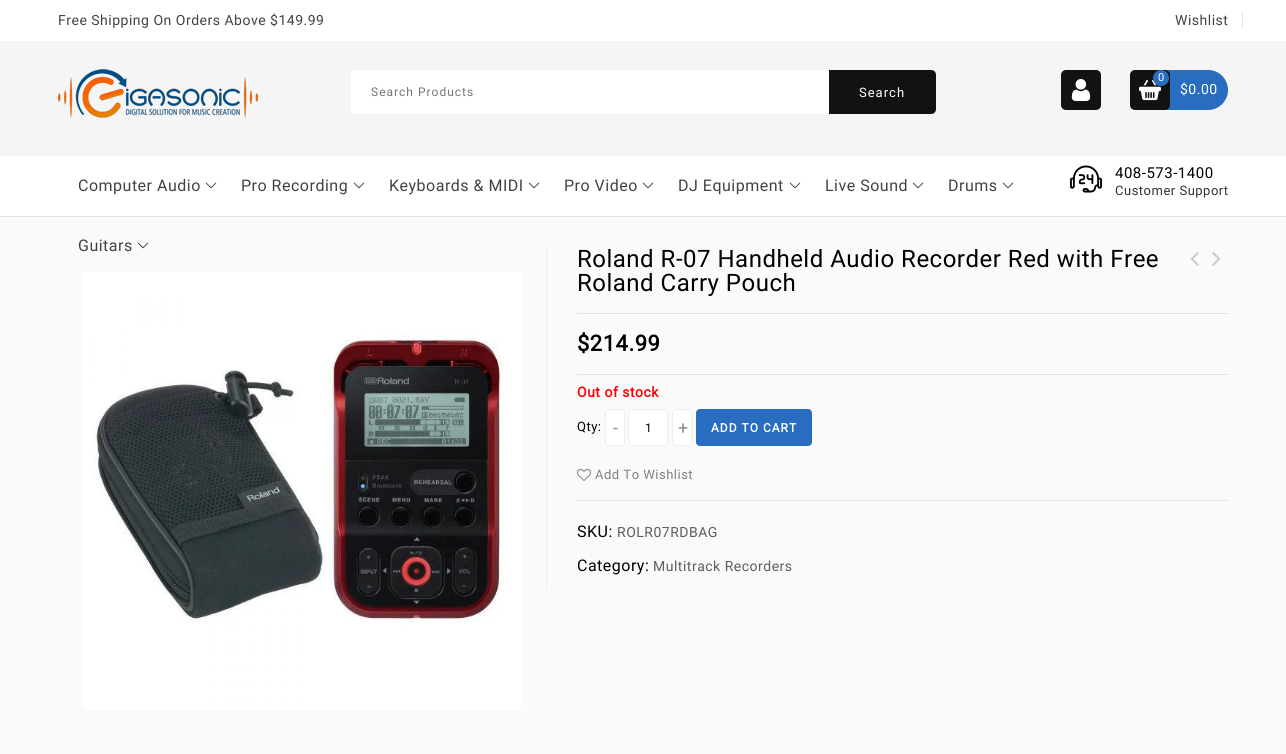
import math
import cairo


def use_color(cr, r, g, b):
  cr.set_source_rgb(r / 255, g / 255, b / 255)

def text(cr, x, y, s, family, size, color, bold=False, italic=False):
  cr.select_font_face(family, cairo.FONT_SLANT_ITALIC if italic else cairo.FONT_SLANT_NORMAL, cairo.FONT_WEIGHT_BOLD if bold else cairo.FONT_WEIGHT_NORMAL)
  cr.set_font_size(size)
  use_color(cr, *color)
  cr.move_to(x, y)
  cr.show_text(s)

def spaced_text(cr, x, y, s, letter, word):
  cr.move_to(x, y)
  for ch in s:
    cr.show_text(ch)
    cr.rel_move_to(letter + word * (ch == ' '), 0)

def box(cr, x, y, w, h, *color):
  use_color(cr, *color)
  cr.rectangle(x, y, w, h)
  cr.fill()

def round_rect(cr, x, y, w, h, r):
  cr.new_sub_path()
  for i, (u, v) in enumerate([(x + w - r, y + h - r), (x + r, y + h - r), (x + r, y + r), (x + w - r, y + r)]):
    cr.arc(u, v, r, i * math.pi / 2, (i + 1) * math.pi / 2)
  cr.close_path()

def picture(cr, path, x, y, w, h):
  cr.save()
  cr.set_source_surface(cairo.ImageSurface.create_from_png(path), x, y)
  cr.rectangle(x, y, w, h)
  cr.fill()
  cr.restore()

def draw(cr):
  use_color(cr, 250, 250, 250)
  cr.paint()
  box(cr, 0, 41, 1286, 115, 245, 245, 245)
  box(cr, 0, 0, 1286, 41, 255, 255, 255)
  box(cr, 1242, 11, 1, 18, 228, 228, 228)
  picture(cr, "img_01.png", 58, 69, 200, 49)
  use_color(cr, 255, 255, 255)
  round_rect(cr, 351, 70, 585, 44, 5)
  cr.fill()
  use_color(cr, 18, 18, 18)
  cr.new_path()
  cr.move_to(829, 70)
  cr.line_to(931, 70)
  cr.curve_to(934, 70, 936, 72, 936, 75)
  cr.line_to(936, 109)
  cr.curve_to(936, 112, 934, 114, 931, 114)
  cr.line_to(829, 114)
  cr.close_path()
  cr.fill()
  round_rect(cr, 1061, 70, 40, 40, 5)
  cr.fill()
  picture(cr, "img_02.png", 1071, 79, 20, 22)
  use_color(cr, 41, 109, 193)
  round_rect(cr, 1130, 70, 98, 40, 20)
  cr.fill()
  use_color(cr, 18, 18, 18)
  round_rect(cr, 1130, 70, 40, 40, 5)
  cr.fill()
  picture(cr, "img_03.png", 1139, 80, 22, 21)
  use_color(cr, 41, 109, 193)
  cr.arc(1161, 78, 8, 0, 2 * math.pi)
  cr.fill()
  box(cr, 0, 156, 1286, 60, 255, 255, 255)
  box(cr, 0, 216, 1286, 1, 228, 228, 228)
  picture(cr, "img_04.png", 205, 182, 12, 7)
  picture(cr, "img_04.png", 353, 182, 12, 7)
  picture(cr, "img_04.png", 528, 182, 12, 7)
  picture(cr, "img_04.png", 642, 182, 12, 7)
  picture(cr, "img_04.png", 789, 182, 12, 7)
  picture(cr, "img_04.png", 912, 182, 12, 7)
  picture(cr, "img_04.png", 1002, 182, 12, 7)
  picture(cr, "img_05.png", 137, 242, 12, 7)
  picture(cr, "img_06.png", 1070, 165, 32, 28)
  picture(cr, "img_07.png", 83, 272, 438, 438)
  box(cr, 546, 247, 1, 341, 237, 237, 237)
  box(cr, 577, 313, 651, 1, 228, 228, 228)
  picture(cr, "img_08.png", 1190, 252, 9, 14)
  picture(cr, "img_09.png", 1212, 252, 9, 14)
  box(cr, 577, 374, 651, 1, 228, 228, 228)
  use_color(cr, 255, 255, 255)
  round_rect(cr, 605.5, 409.5, 19, 36, 3.5)
  cr.fill_preserve()
  use_color(cr, 237, 237, 237)
  cr.set_line_width(1)
  cr.stroke()
  use_color(cr, 255, 255, 255)
  round_rect(cr, 628.5, 409.5, 39, 36, 4.5)
  cr.fill_preserve()
  use_color(cr, 237, 237, 237)
  cr.stroke()
  use_color(cr, 255, 255, 255)
  round_rect(cr, 672.5, 409.5, 19, 36, 3.5)
  cr.fill_preserve()
  use_color(cr, 237, 237, 237)
  cr.stroke()
  use_color(cr, 41, 109, 193)
  round_rect(cr, 696, 409, 116, 37, 4)
  cr.fill()
  picture(cr, "img_10.png", 577, 469, 14, 12)
  box(cr, 577, 500, 651, 1, 228, 228, 228)
  cr.select_font_face("Roboto")
  cr.set_font_size(14)
  use_color(cr, 66, 66, 66)
  spaced_text(cr, 58, 25, "Free Shipping On Orders Above $149.99", 0.5, 0)
  spaced_text(cr, 1175, 25, "Wishlist", 0.5, 0)
  cr.set_font_size(12)
  use_color(cr, 117, 117, 117)
  spaced_text(cr, 371, 96, "Search Products", 1, 0)
  cr.set_font_size(13)
  use_color(cr, 255, 255, 255)
  spaced_text(cr, 859, 97, "Search", 1, 0)
  cr.set_font_size(11)
  spaced_text(cr, 1158, 81, "0", 0.5, 0)
  cr.set_font_size(14)
  spaced_text(cr, 1180, 94, "$0.00", 0.5, 0)
  cr.set_font_size(16)
  use_color(cr, 66, 66, 66)
  spaced_text(cr, 78, 191, "Computer Audio", 0.5, 0)
  spaced_text(cr, 241, 191, "Pro Recording", 0.5, 0)
  spaced_text(cr, 389, 191, "Keyboards & MIDI", 0.5, 0)
  spaced_text(cr, 564, 191, "Pro Video", 0.5, 0)
  spaced_text(cr, 678, 191, "DJ Equipment", 0.5, 0)
  spaced_text(cr, 825, 191, "Live Sound", 0.5, 0)
  spaced_text(cr, 948, 191, "Drums", 0.5, 0)
  spaced_text(cr, 78, 251, "Guitars", 0.5, 0)
  cr.set_font_size(15)
  use_color(cr, 0, 0, 0)
  spaced_text(cr, 1115, 178, "408-573-1400", 0.5, 0)
  cr.set_font_size(13)
  use_color(cr, 51, 51, 51)
  spaced_text(cr, 1115, 195, "Customer Support", 0.5, 0)
  cr.set_font_size(24)
  use_color(cr, 0, 0, 0)
  spaced_text(cr, 577, 267, "Roland R-07 Handheld Audio Recorder Red with Free", 0.5, 0)
  spaced_text(cr, 577, 291, "Roland Carry Pouch", 0.5, 0)
  cr.select_font_face("Roboto", cairo.FONT_SLANT_NORMAL, cairo.FONT_WEIGHT_BOLD)
  cr.set_font_size(22)
  spaced_text(cr, 577, 351, "$214.99", 0.5, 0)
  cr.set_font_size(14)
  use_color(cr, 255, 0, 0)
  spaced_text(cr, 577, 397, "Out of stock", 0.5, 0)
  cr.select_font_face("Roboto")
  cr.set_font_size(13)
  use_color(cr, 0, 0, 0)
  spaced_text(cr, 577, 431, "Qty:", 0.5, 0)
  cr.set_font_size(18)
  use_color(cr, 140, 140, 140)
  spaced_text(cr, 613, 434, "-", 1, 0)
  text(cr, 645, 432, "1", "Roboto", 12, (0, 0, 0))
  cr.set_font_size(18)
  use_color(cr, 140, 140, 140)
  spaced_text(cr, 678, 434, "+", 1, 0)
  cr.select_font_face("Roboto", cairo.FONT_SLANT_NORMAL, cairo.FONT_WEIGHT_BOLD)
  cr.set_font_size(12)
  use_color(cr, 255, 255, 255)
  spaced_text(cr, 711, 432, "ADD TO CART", 1, 0)
  cr.select_font_face("Roboto")
  cr.set_font_size(13)
  use_color(cr, 128, 128, 128)
  spaced_text(cr, 595, 479, "Add To Wishlist", 0.5, 0)
  cr.set_font_size(16)
  use_color(cr, 0, 0, 0)
  spaced_text(cr, 577, 537, "SKU:", 0.5, 0)
  cr.set_font_size(14)
  use_color(cr, 93, 93, 93)
  spaced_text(cr, 617, 537, "ROLR07RDBAG", 0.5, 0)
  cr.set_font_size(16)
  use_color(cr, 0, 0, 0)
  spaced_text(cr, 577, 571, "Category:", 0.5, 0)
  cr.set_font_size(14)
  use_color(cr, 93, 93, 93)
  spaced_text(cr, 653, 571, "Multitrack Recorders", 0.5, 0)


surface = cairo.ImageSurface(cairo.FORMAT_RGB24, 1286, 754)
cr = cairo.Context(surface)
options = cairo.FontOptions()
options.set_hint_metrics(cairo.HINT_METRICS_OFF)
options.set_hint_style(cairo.HINT_STYLE_NONE)
cr.set_font_options(options)
cr.set_miter_limit(4)
draw(cr)
surface.write_to_png("out.png")
